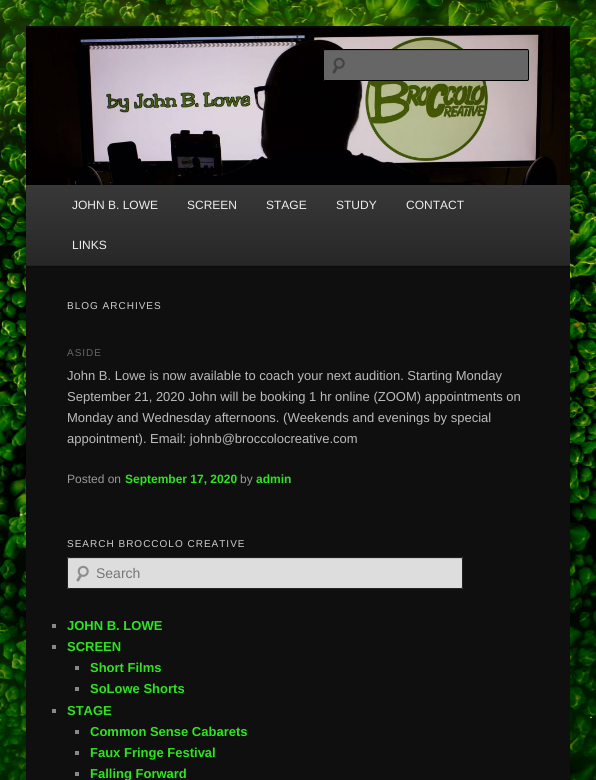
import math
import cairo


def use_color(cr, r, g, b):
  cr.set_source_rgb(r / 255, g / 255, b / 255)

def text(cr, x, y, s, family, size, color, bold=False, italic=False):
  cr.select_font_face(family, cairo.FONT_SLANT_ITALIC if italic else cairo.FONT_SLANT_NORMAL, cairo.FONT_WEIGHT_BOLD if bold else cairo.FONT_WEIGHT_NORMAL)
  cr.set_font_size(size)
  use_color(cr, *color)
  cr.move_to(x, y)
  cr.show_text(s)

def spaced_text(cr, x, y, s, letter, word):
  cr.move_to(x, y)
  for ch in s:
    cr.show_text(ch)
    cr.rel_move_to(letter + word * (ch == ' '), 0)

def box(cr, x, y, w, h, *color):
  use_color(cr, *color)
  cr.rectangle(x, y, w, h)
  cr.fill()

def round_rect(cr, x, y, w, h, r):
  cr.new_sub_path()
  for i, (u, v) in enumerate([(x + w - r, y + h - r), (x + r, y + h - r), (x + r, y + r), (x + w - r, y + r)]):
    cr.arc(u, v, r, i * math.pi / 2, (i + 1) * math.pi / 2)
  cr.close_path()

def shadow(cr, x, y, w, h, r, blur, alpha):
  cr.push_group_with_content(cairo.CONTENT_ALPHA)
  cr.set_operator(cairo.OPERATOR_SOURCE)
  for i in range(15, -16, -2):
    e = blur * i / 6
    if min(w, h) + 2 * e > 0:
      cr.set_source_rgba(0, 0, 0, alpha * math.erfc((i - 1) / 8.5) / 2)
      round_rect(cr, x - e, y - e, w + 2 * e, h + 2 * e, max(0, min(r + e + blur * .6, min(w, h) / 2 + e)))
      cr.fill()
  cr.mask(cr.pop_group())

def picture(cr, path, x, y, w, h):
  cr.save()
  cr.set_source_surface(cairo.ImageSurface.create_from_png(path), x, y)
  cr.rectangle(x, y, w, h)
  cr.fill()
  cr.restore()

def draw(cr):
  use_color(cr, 255, 255, 255)
  cr.paint()
  picture(cr, "img_01.png", 0, 0, 596, 780)
  box(cr, 26, 266, 544, 514, 15, 15, 15)
  box(cr, 26, 26, 544, 2, 10, 10, 10)
  use_color(cr, 0, 0, 0)
  shadow(cr, 26, 186, 544, 81, 0, 1, 0.4)
  picture(cr, "img_02.png", 26, 28, 544, 157)
  use_color(cr, 102, 102, 102)
  round_rect(cr, 323, 49, 206, 32, 2)
  cr.fill()
  picture(cr, "img_03.png", 332, 57, 13, 17)
  use_color(cr, 92, 92, 92)
  cr.new_path()
  cr.move_to(325, 51)
  cr.line_to(528, 51)
  cr.line_to(528, 52)
  cr.curve_to(528, 51, 528, 50, 527, 50)
  cr.line_to(325, 50)
  cr.line_to(324, 50)
  cr.line_to(324, 52)
  cr.curve_to(324, 51, 324, 51, 325, 51)
  cr.close_path()
  cr.fill()
  round_rect(cr, 323.5, 49.5, 205, 31, 1.5)
  use_color(cr, 0, 0, 0)
  cr.set_line_width(1)
  cr.stroke()
  gradient = cairo.LinearGradient(298, 185, 298, 265)
  gradient.add_color_stop_rgba(0, 0.22, 0.22, 0.22, 1)
  gradient.add_color_stop_rgba(1, 0.153, 0.153, 0.153, 1)
  cr.set_source(gradient)
  cr.rectangle(26, 185, 544, 80)
  cr.fill()
  box(cr, 26, 265, 544, 1, 34, 34, 34)
  use_color(cr, 221, 221, 221)
  round_rect(cr, 67, 557, 396, 32, 2)
  cr.fill()
  picture(cr, "img_04.png", 76, 565, 13, 17)
  use_color(cr, 199, 199, 199)
  cr.new_path()
  cr.move_to(69, 558)
  cr.line_to(68, 559)
  cr.line_to(461, 559)
  cr.line_to(462, 560)
  cr.curve_to(462, 559, 462, 558, 461, 558)
  cr.close_path()
  cr.fill()
  round_rect(cr, 67.5, 557.5, 395, 31, 1.5)
  use_color(cr, 34, 34, 34)
  cr.stroke()
  box(cr, 52, 624, 4, 4, 136, 136, 136)
  box(cr, 52, 645, 4, 4, 136, 136, 136)
  box(cr, 75, 666, 4, 4, 136, 136, 136)
  box(cr, 75, 687, 4, 4, 136, 136, 136)
  box(cr, 52, 709, 4, 4, 136, 136, 136)
  box(cr, 75, 730, 4, 4, 136, 136, 136)
  box(cr, 75, 751, 4, 4, 136, 136, 136)
  box(cr, 75, 772, 4, 4, 136, 136, 136)
  text(cr, 72, 209, "JOHN B. LOWE", "Liberation Sans", 12, (238, 238, 238))
  text(cr, 187, 209, "SCREEN", "Liberation Sans", 12, (238, 238, 238))
  text(cr, 266, 209, "STAGE", "Liberation Sans", 12, (238, 238, 238))
  text(cr, 336, 209, "STUDY", "Liberation Sans", 12, (238, 238, 238))
  text(cr, 406, 209, "CONTACT", "Liberation Sans", 12, (238, 238, 238))
  text(cr, 72, 249, "LINKS", "Liberation Sans", 12, (238, 238, 238))
  cr.set_font_size(10)
  use_color(cr, 204, 204, 204)
  spaced_text(cr, 67, 309, "BLOG ARCHIVES", 1, 0)
  use_color(cr, 102, 102, 102)
  spaced_text(cr, 67, 356, "ASIDE", 1, 0)
  text(cr, 67, 380, "John B. Lowe is now available to coach your next audition. Starting Monday", "Liberation Sans", 13, (187, 187, 187))
  text(cr, 67, 401, "September 21, 2020 John will be booking 1 hr online (ZOOM) appointments on", "Liberation Sans", 13, (187, 187, 187))
  text(cr, 67, 422, "Monday and Wednesday afternoons. (Weekends and evenings by special", "Liberation Sans", 13, (187, 187, 187))
  text(cr, 67, 443, "appointment). Email: johnb@broccolocreative.com", "Liberation Sans", 13, (187, 187, 187))
  text(cr, 67, 483, "Posted on", "Liberation Sans", 12, (153, 153, 153))
  text(cr, 125, 483, "September 17, 2020", "Liberation Sans", 12, (46, 228, 31), bold=True)
  text(cr, 240, 483, "by", "Liberation Sans", 12, (153, 153, 153))
  text(cr, 256, 483, "admin", "Liberation Sans", 12, (46, 228, 31), bold=True)
  cr.select_font_face("Liberation Sans")
  cr.set_font_size(10)
  use_color(cr, 204, 204, 204)
  spaced_text(cr, 67, 547, "SEARCH BROCCOLO CREATIVE", 1, 0)
  text(cr, 96, 578, "Search", "Liberation Sans", 14, (117, 117, 117))
  text(cr, 67, 630, "JOHN B. LOWE", "Liberation Sans", 13, (46, 228, 31), bold=True)
  text(cr, 67, 651, "SCREEN", "Liberation Sans", 13, (46, 228, 31), bold=True)
  text(cr, 90, 672, "Short Films", "Liberation Sans", 13, (46, 228, 31), bold=True)
  text(cr, 90, 693, "SoLowe Shorts", "Liberation Sans", 13, (46, 228, 31), bold=True)
  text(cr, 67, 715, "STAGE", "Liberation Sans", 13, (46, 228, 31), bold=True)
  text(cr, 90, 736, "Common Sense Cabarets", "Liberation Sans", 13, (46, 228, 31), bold=True)
  text(cr, 90, 757, "Faux Fringe Festival", "Liberation Sans", 13, (46, 228, 31), bold=True)
  text(cr, 90, 778, "Falling Forward", "Liberation Sans", 13, (46, 228, 31), bold=True)


surface = cairo.ImageSurface(cairo.FORMAT_RGB24, 596, 780)
cr = cairo.Context(surface)
options = cairo.FontOptions()
options.set_hint_metrics(cairo.HINT_METRICS_OFF)
options.set_hint_style(cairo.HINT_STYLE_NONE)
cr.set_font_options(options)
cr.set_miter_limit(4)
draw(cr)
surface.write_to_png("out.png")
